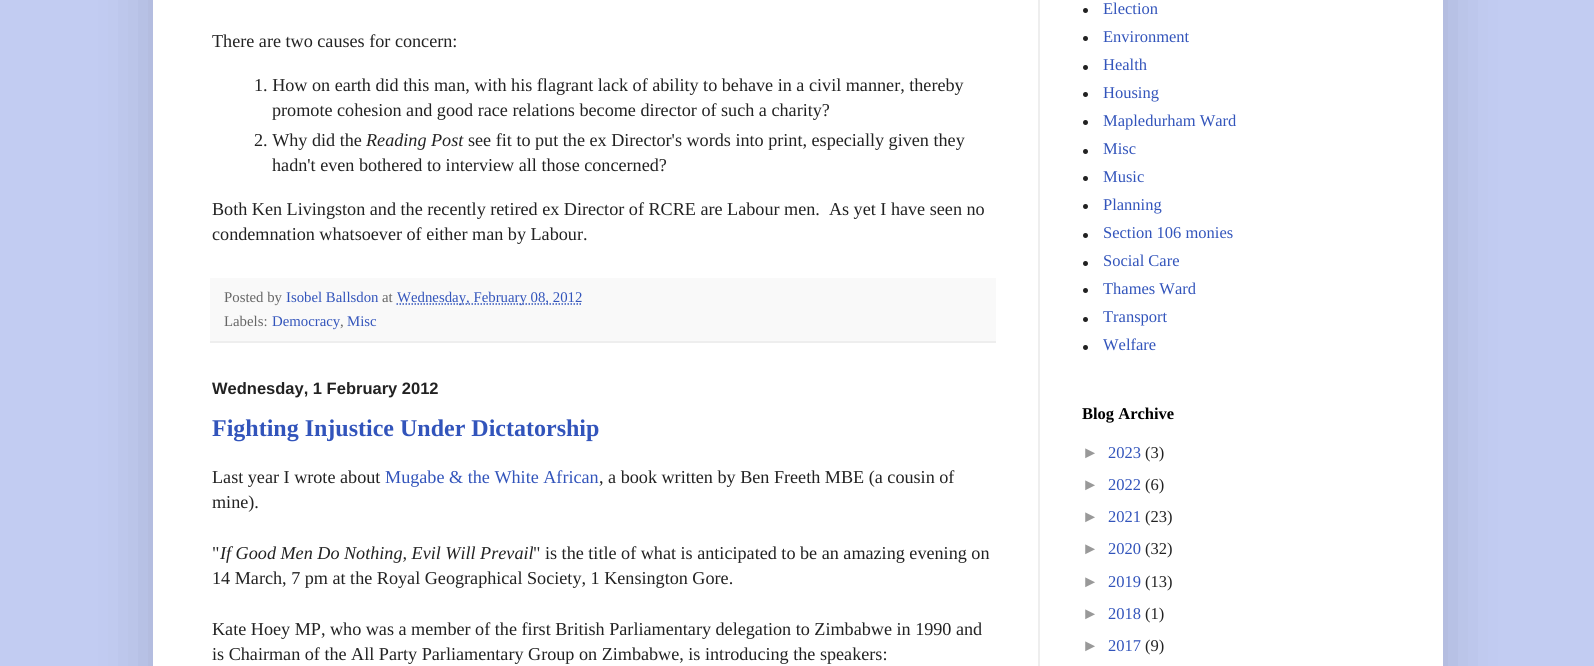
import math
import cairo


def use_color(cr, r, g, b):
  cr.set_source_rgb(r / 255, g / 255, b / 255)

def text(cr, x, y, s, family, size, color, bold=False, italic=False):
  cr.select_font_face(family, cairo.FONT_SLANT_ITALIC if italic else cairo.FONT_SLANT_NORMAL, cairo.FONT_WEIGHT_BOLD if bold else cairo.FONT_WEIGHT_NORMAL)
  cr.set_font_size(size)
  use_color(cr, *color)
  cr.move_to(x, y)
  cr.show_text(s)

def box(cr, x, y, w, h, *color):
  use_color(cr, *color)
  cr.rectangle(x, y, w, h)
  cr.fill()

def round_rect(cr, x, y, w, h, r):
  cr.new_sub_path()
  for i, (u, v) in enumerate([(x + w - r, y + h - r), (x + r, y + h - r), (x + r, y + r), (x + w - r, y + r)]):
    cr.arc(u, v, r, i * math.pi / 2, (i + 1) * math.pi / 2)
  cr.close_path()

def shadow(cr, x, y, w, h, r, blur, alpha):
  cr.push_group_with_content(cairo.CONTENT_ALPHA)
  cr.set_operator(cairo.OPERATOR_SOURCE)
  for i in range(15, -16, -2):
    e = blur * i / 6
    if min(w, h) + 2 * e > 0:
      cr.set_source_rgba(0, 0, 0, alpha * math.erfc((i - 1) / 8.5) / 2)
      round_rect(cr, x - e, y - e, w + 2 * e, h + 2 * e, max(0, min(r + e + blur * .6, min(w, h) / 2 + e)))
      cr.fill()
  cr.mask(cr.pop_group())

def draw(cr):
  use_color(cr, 194, 204, 242)
  cr.paint()
  use_color(cr, 0, 0, 0)
  shadow(cr, 153, -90, 1290, 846, 0, 30, 0.15)
  box(cr, 153, 0, 1290, 666, 255, 255, 255)
  box(cr, 1038, 0, 2, 666, 238, 238, 238)
  box(cr, 210, 278, 786, 63, 249, 249, 249)
  box(cr, 210, 341, 786, 2, 238, 238, 238)
  cr.new_path()
  cr.move_to(396.5, 304)
  cr.line_to(582, 304)
  use_color(cr, 50, 84, 187)
  cr.set_line_width(1.5)
  cr.set_dash([1.5, 1.5])
  cr.stroke()
  use_color(cr, 34, 34, 34)
  cr.arc(1085.5, 10.5, 2.5, 0, 2 * math.pi)
  cr.fill()
  cr.arc(1085.5, 38.5, 2.5, 0, 2 * math.pi)
  cr.fill()
  cr.arc(1085.5, 67.5, 2.5, 0, 2 * math.pi)
  cr.fill()
  cr.arc(1085.5, 94.5, 2.5, 0, 2 * math.pi)
  cr.fill()
  cr.arc(1085.5, 122.5, 2.5, 0, 2 * math.pi)
  cr.fill()
  cr.arc(1085.5, 151.5, 2.5, 0, 2 * math.pi)
  cr.fill()
  cr.arc(1085.5, 178.5, 2.5, 0, 2 * math.pi)
  cr.fill()
  cr.arc(1085.5, 206.5, 2.5, 0, 2 * math.pi)
  cr.fill()
  cr.arc(1085.5, 235.5, 2.5, 0, 2 * math.pi)
  cr.fill()
  cr.arc(1085.5, 263.5, 2.5, 0, 2 * math.pi)
  cr.fill()
  cr.arc(1085.5, 290.5, 2.5, 0, 2 * math.pi)
  cr.fill()
  cr.arc(1085.5, 319.5, 2.5, 0, 2 * math.pi)
  cr.fill()
  cr.arc(1085.5, 347.5, 2.5, 0, 2 * math.pi)
  cr.fill()
  text(cr, 212, 47, "There are two causes for concern:", "Liberation Serif", 18.15, (34, 34, 34))
  text(cr, 254, 91, "1. How on earth did this man, with his flagrant lack of ability to behave in a civil manner, thereby", "Liberation Serif", 18.15, (34, 34, 34))
  text(cr, 272, 116, "promote cohesion and good race relations become director of such a charity?", "Liberation Serif", 18.15, (34, 34, 34))
  text(cr, 254, 146, "2. Why did the", "Liberation Serif", 18.15, (34, 34, 34))
  text(cr, 366, 146, "Reading Post", "Liberation Serif", 18.15, (34, 34, 34), italic=True)
  text(cr, 468, 146, "see fit to put the ex Director's words into print, especially given they", "Liberation Serif", 18.15, (34, 34, 34))
  text(cr, 272, 171, "hadn't even bothered to interview all those concerned?", "Liberation Serif", 18.15, (34, 34, 34))
  text(cr, 212, 215, "Both Ken Livingston and the recently retired ex Director of RCRE are Labour men.  As yet I have seen no", "Liberation Serif", 18.15, (34, 34, 34))
  text(cr, 212, 240, "condemnation whatsoever of either man by Labour.", "Liberation Serif", 18.15, (34, 34, 34))
  text(cr, 224, 302, "Posted by", "Liberation Serif", 14.8, (102, 102, 102))
  text(cr, 286, 302, "Isobel Ballsdon", "Liberation Serif", 14.8, (50, 84, 187))
  text(cr, 382, 302, "at", "Liberation Serif", 14.8, (102, 102, 102))
  text(cr, 397, 302, "Wednesday, February 08, 2012", "Liberation Serif", 14.8, (50, 84, 187))
  text(cr, 224, 326, "Labels:", "Liberation Serif", 14.8, (102, 102, 102))
  text(cr, 272, 326, "Democracy", "Liberation Serif", 14.8, (50, 84, 187))
  text(cr, 340, 326, ",", "Liberation Serif", 14.8, (102, 102, 102))
  text(cr, 347, 326, "Misc", "Liberation Serif", 14.8, (50, 84, 187))
  text(cr, 212, 394, "Wednesday, 1 February 2012", "Liberation Sans", 16.5, (34, 34, 34), bold=True)
  text(cr, 212, 436, "Fighting Injustice Under Dictatorship", "Liberation Serif", 24, (50, 84, 187), bold=True)
  text(cr, 212, 483, "Last year I wrote about", "Liberation Serif", 18.15, (34, 34, 34))
  text(cr, 385, 483, "Mugabe & the White African", "Liberation Serif", 18.15, (50, 84, 187))
  text(cr, 599, 483, ", a book written by Ben Freeth MBE (a cousin of", "Liberation Serif", 18.15, (34, 34, 34))
  text(cr, 212, 508, "mine).", "Liberation Serif", 18.15, (34, 34, 34))
  text(cr, 212, 559, "\"", "Liberation Serif", 18.15, (34, 34, 34))
  text(cr, 220, 559, "If Good Men Do Nothing, Evil Will Prevail", "Liberation Serif", 18.15, (34, 34, 34), italic=True)
  text(cr, 533, 559, "\" is the title of what is anticipated to be an amazing evening on", "Liberation Serif", 18.15, (34, 34, 34))
  text(cr, 212, 584, "14 March, 7 pm at the Royal Geographical Society, 1 Kensington Gore.", "Liberation Serif", 18.15, (34, 34, 34))
  text(cr, 212, 635, "Kate Hoey MP, who was a member of the first British Parliamentary delegation to Zimbabwe in 1990 and", "Liberation Serif", 18.15, (34, 34, 34))
  text(cr, 212, 660, "is Chairman of the All Party Parliamentary Group on Zimbabwe, is introducing the speakers:", "Liberation Serif", 18.15, (34, 34, 34))
  text(cr, 1103, 14, "Election", "Liberation Serif", 16.5, (50, 84, 187))
  text(cr, 1103, 42, "Environment", "Liberation Serif", 16.5, (50, 84, 187))
  text(cr, 1103, 70, "Health", "Liberation Serif", 16.5, (50, 84, 187))
  text(cr, 1103, 98, "Housing", "Liberation Serif", 16.5, (50, 84, 187))
  text(cr, 1103, 126, "Mapledurham Ward", "Liberation Serif", 16.5, (50, 84, 187))
  text(cr, 1103, 154, "Misc", "Liberation Serif", 16.5, (50, 84, 187))
  text(cr, 1103, 182, "Music", "Liberation Serif", 16.5, (50, 84, 187))
  text(cr, 1103, 210, "Planning", "Liberation Serif", 16.5, (50, 84, 187))
  text(cr, 1103, 238, "Section 106 monies", "Liberation Serif", 16.5, (50, 84, 187))
  text(cr, 1103, 266, "Social Care", "Liberation Serif", 16.5, (50, 84, 187))
  text(cr, 1103, 294, "Thames Ward", "Liberation Serif", 16.5, (50, 84, 187))
  text(cr, 1103, 322, "Transport", "Liberation Serif", 16.5, (50, 84, 187))
  text(cr, 1103, 350, "Welfare", "Liberation Serif", 16.5, (50, 84, 187))
  text(cr, 1082, 419, "Blog Archive", "Liberation Serif", 16.5, (0, 0, 0), bold=True)
  text(cr, 1082, 458, "►", "Liberation Sans", 16.5, (153, 153, 153))
  text(cr, 1108, 458, "2023", "Liberation Serif", 16.5, (50, 84, 187))
  text(cr, 1145, 458, "(3)", "Liberation Serif", 16.5, (34, 34, 34))
  text(cr, 1082, 490, "►", "Liberation Sans", 16.5, (153, 153, 153))
  text(cr, 1108, 490, "2022", "Liberation Serif", 16.5, (50, 84, 187))
  text(cr, 1145, 490, "(6)", "Liberation Serif", 16.5, (34, 34, 34))
  text(cr, 1082, 522, "►", "Liberation Sans", 16.5, (153, 153, 153))
  text(cr, 1108, 522, "2021", "Liberation Serif", 16.5, (50, 84, 187))
  text(cr, 1145, 522, "(23)", "Liberation Serif", 16.5, (34, 34, 34))
  text(cr, 1082, 554, "►", "Liberation Sans", 16.5, (153, 153, 153))
  text(cr, 1108, 554, "2020", "Liberation Serif", 16.5, (50, 84, 187))
  text(cr, 1145, 554, "(32)", "Liberation Serif", 16.5, (34, 34, 34))
  text(cr, 1082, 587, "►", "Liberation Sans", 16.5, (153, 153, 153))
  text(cr, 1108, 587, "2019", "Liberation Serif", 16.5, (50, 84, 187))
  text(cr, 1145, 587, "(13)", "Liberation Serif", 16.5, (34, 34, 34))
  text(cr, 1082, 619, "►", "Liberation Sans", 16.5, (153, 153, 153))
  text(cr, 1108, 619, "2018", "Liberation Serif", 16.5, (50, 84, 187))
  text(cr, 1145, 619, "(1)", "Liberation Serif", 16.5, (34, 34, 34))
  text(cr, 1082, 651, "►", "Liberation Sans", 16.5, (153, 153, 153))
  text(cr, 1108, 651, "2017", "Liberation Serif", 16.5, (50, 84, 187))
  text(cr, 1145, 651, "(9)", "Liberation Serif", 16.5, (34, 34, 34))


surface = cairo.ImageSurface(cairo.FORMAT_RGB24, 1594, 666)
cr = cairo.Context(surface)
options = cairo.FontOptions()
options.set_hint_metrics(cairo.HINT_METRICS_OFF)
options.set_hint_style(cairo.HINT_STYLE_NONE)
cr.set_font_options(options)
cr.set_miter_limit(4)
draw(cr)
surface.write_to_png("out.png")
